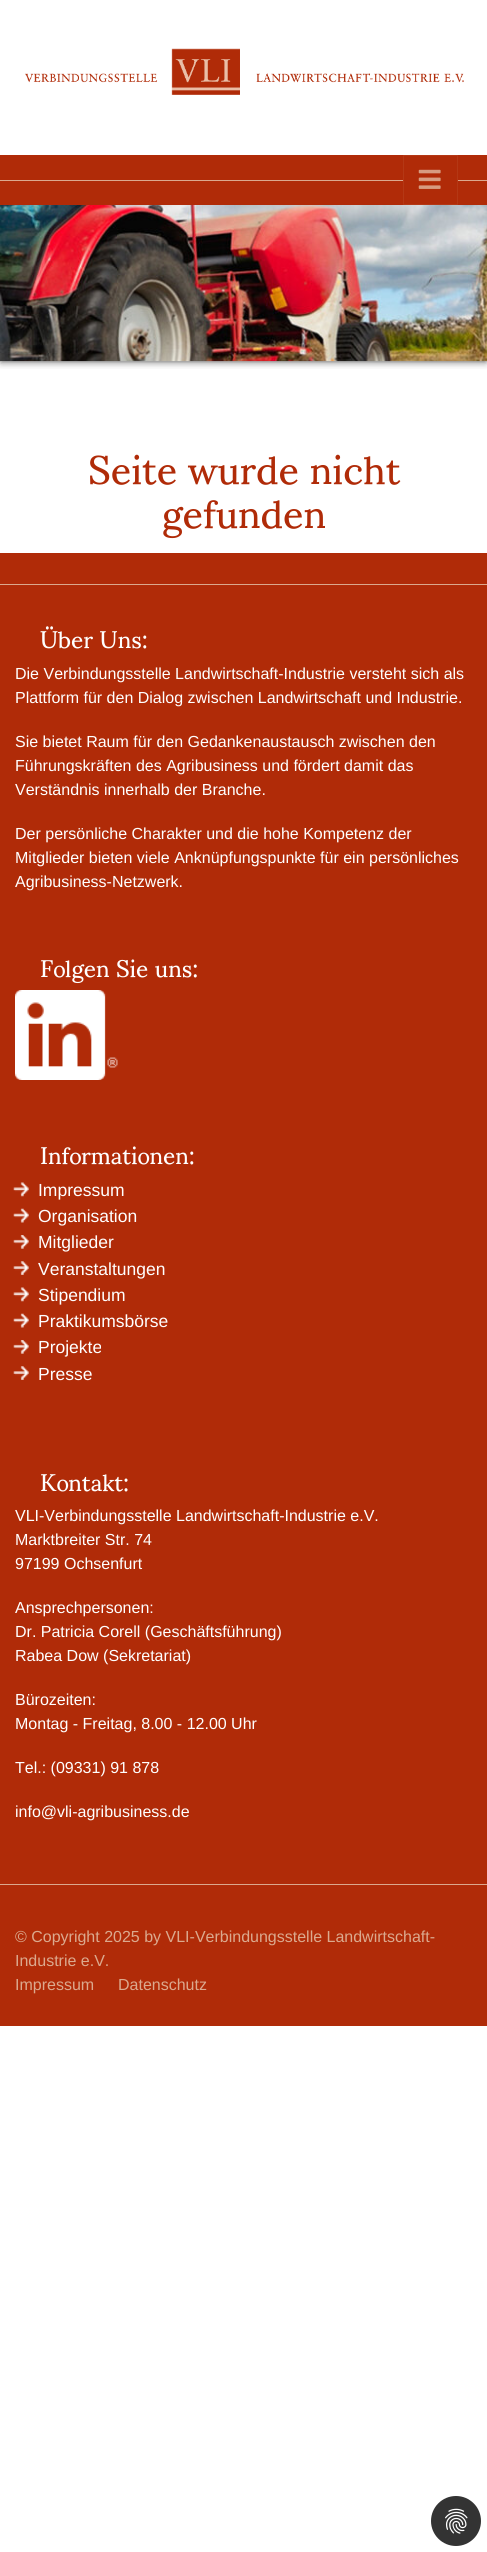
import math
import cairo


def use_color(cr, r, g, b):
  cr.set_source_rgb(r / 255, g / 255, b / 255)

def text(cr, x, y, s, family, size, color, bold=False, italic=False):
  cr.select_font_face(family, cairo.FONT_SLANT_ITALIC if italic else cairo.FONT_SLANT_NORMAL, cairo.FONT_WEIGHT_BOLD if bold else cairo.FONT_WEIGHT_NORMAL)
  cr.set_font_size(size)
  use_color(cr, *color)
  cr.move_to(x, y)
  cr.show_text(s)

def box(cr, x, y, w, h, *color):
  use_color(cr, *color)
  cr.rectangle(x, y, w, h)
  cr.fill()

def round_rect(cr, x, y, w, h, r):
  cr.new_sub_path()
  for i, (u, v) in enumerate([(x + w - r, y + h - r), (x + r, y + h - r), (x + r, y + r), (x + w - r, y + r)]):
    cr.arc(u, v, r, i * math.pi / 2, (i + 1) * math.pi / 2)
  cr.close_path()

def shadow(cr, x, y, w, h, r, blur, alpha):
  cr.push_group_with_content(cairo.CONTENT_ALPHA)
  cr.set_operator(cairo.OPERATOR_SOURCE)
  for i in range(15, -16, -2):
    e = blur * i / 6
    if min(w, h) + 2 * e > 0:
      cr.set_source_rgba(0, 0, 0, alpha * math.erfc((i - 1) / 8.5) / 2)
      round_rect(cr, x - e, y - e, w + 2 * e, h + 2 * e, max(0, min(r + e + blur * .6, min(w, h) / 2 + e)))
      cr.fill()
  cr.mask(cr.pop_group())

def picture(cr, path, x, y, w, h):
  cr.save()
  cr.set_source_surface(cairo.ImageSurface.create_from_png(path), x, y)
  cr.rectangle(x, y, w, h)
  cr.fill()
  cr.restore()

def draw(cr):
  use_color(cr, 255, 255, 255)
  cr.paint()
  cr.save()
  cr.rectangle(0, 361, 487, 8)
  cr.clip()
  use_color(cr, 0, 0, 0)
  shadow(cr, 1, 3, 485, 358, 0, 4, 0.75)
  cr.restore()
  picture(cr, "img_01.png", 25, 48, 439, 47)
  box(cr, 0, 155, 487, 50, 176, 43, 8)
  box(cr, 0, 180, 487, 1, 219, 169, 142)
  box(cr, 404, 180, 53, 1, 176, 43, 8)
  cr.rectangle(403.5, 155.5, 54, 49)
  use_color(cr, 180, 56, 21)
  cr.set_line_width(1)
  cr.stroke()
  picture(cr, "img_02.png", 418, 169, 23, 20)
  picture(cr, "img_03.png", 0, 205, 487, 157)
  box(cr, 0, 553, 487, 1473, 176, 43, 8)
  box(cr, 0, 584, 487, 1, 219, 169, 142)
  box(cr, 0, 1884, 487, 1, 219, 169, 142)
  picture(cr, "img_04.png", 15, 990, 103, 90)
  picture(cr, "img_05.png", 13, 1182, 16, 15)
  picture(cr, "img_06.png", 13, 1208, 16, 15)
  picture(cr, "img_07.png", 13, 1235, 16, 14)
  picture(cr, "img_08.png", 13, 1261, 16, 14)
  picture(cr, "img_05.png", 13, 1287, 16, 15)
  picture(cr, "img_06.png", 13, 1313, 16, 15)
  picture(cr, "img_07.png", 13, 1340, 16, 14)
  picture(cr, "img_08.png", 13, 1366, 16, 14)
  use_color(cr, 51, 51, 51)
  cr.arc(456, 2521, 25, 0, 2 * math.pi)
  cr.fill()
  picture(cr, "img_09.png", 445, 2508, 23, 26)
  text(cr, 88, 484, "Seite wurde nicht", "Sumana", 40, (176, 43, 8))
  text(cr, 162, 528, "gefunden", "Sumana", 40, (176, 43, 8))
  text(cr, 40, 648, "Über Uns:", "Sumana", 24, (255, 255, 255))
  text(cr, 15, 679, "Die Verbindungsstelle Landwirtschaft-Industrie versteht sich als", "Liberation Sans", 16, (255, 255, 255))
  text(cr, 15, 703, "Plattform für den Dialog zwischen Landwirtschaft und Industrie.", "Liberation Sans", 16, (255, 255, 255))
  text(cr, 15, 747, "Sie bietet Raum für den Gedankenaustausch zwischen den", "Liberation Sans", 16, (255, 255, 255))
  text(cr, 15, 771, "Führungskräften des Agribusiness und fördert damit das", "Liberation Sans", 16, (255, 255, 255))
  text(cr, 15, 795, "Verständnis innerhalb der Branche.", "Liberation Sans", 16, (255, 255, 255))
  text(cr, 15, 839, "Der persönliche Charakter und die hohe Kompetenz der", "Liberation Sans", 16, (255, 255, 255))
  text(cr, 15, 863, "Mitglieder bieten viele Anknüpfungspunkte für ein persönliches", "Liberation Sans", 16, (255, 255, 255))
  text(cr, 15, 887, "Agribusiness-Netzwerk.", "Liberation Sans", 16, (255, 255, 255))
  text(cr, 40, 977, "Folgen Sie uns:", "Sumana", 24, (255, 255, 255))
  text(cr, 40, 1164, "Informationen:", "Sumana", 24, (255, 255, 255))
  text(cr, 38, 1196, "Impressum", "Liberation Sans", 17.5, (255, 255, 255))
  text(cr, 38, 1222, "Organisation", "Liberation Sans", 17.5, (255, 255, 255))
  text(cr, 38, 1248, "Mitglieder", "Liberation Sans", 17.5, (255, 255, 255))
  text(cr, 38, 1275, "Veranstaltungen", "Liberation Sans", 17.5, (255, 255, 255))
  text(cr, 38, 1301, "Stipendium", "Liberation Sans", 17.5, (255, 255, 255))
  text(cr, 38, 1327, "Praktikumsbörse", "Liberation Sans", 17.5, (255, 255, 255))
  text(cr, 38, 1353, "Projekte", "Liberation Sans", 17.5, (255, 255, 255))
  text(cr, 38, 1380, "Presse", "Liberation Sans", 17.5, (255, 255, 255))
  text(cr, 40, 1491, "Kontakt:", "Sumana", 24, (255, 255, 255))
  text(cr, 15, 1521, "VLI-Verbindungsstelle Landwirtschaft-Industrie e.V.", "Liberation Sans", 16, (255, 255, 255))
  text(cr, 15, 1545, "Marktbreiter Str. 74", "Liberation Sans", 16, (255, 255, 255))
  text(cr, 15, 1569, "97199 Ochsenfurt", "Liberation Sans", 16, (255, 255, 255))
  text(cr, 15, 1613, "Ansprechpersonen:", "Liberation Sans", 16, (255, 255, 255))
  text(cr, 15, 1637, "Dr. Patricia Corell (Geschäftsführung)", "Liberation Sans", 16, (255, 255, 255))
  text(cr, 15, 1661, "Rabea Dow (Sekretariat)", "Liberation Sans", 16, (255, 255, 255))
  text(cr, 15, 1705, "Bürozeiten:", "Liberation Sans", 16, (255, 255, 255))
  text(cr, 15, 1729, "Montag - Freitag, 8.00 - 12.00 Uhr", "Liberation Sans", 16, (255, 255, 255))
  text(cr, 15, 1773, "Tel.: (09331) 91 878", "Liberation Sans", 16, (255, 255, 255))
  text(cr, 15, 1817, "info@vli-agribusiness.de", "Liberation Sans", 16, (255, 255, 255))
  text(cr, 15, 1942, "© Copyright 2025 by VLI-Verbindungsstelle Landwirtschaft-", "Liberation Sans", 16, (219, 169, 142))
  text(cr, 15, 1966, "Industrie e.V.", "Liberation Sans", 16, (219, 169, 142))
  text(cr, 15, 1990, "Impressum", "Liberation Sans", 16, (219, 169, 142))
  text(cr, 118, 1990, "Datenschutz", "Liberation Sans", 16, (219, 169, 142))


surface = cairo.ImageSurface(cairo.FORMAT_RGB24, 487, 2552)
cr = cairo.Context(surface)
options = cairo.FontOptions()
options.set_hint_metrics(cairo.HINT_METRICS_OFF)
options.set_hint_style(cairo.HINT_STYLE_NONE)
cr.set_font_options(options)
cr.set_miter_limit(4)
draw(cr)
surface.write_to_png("out.png")
